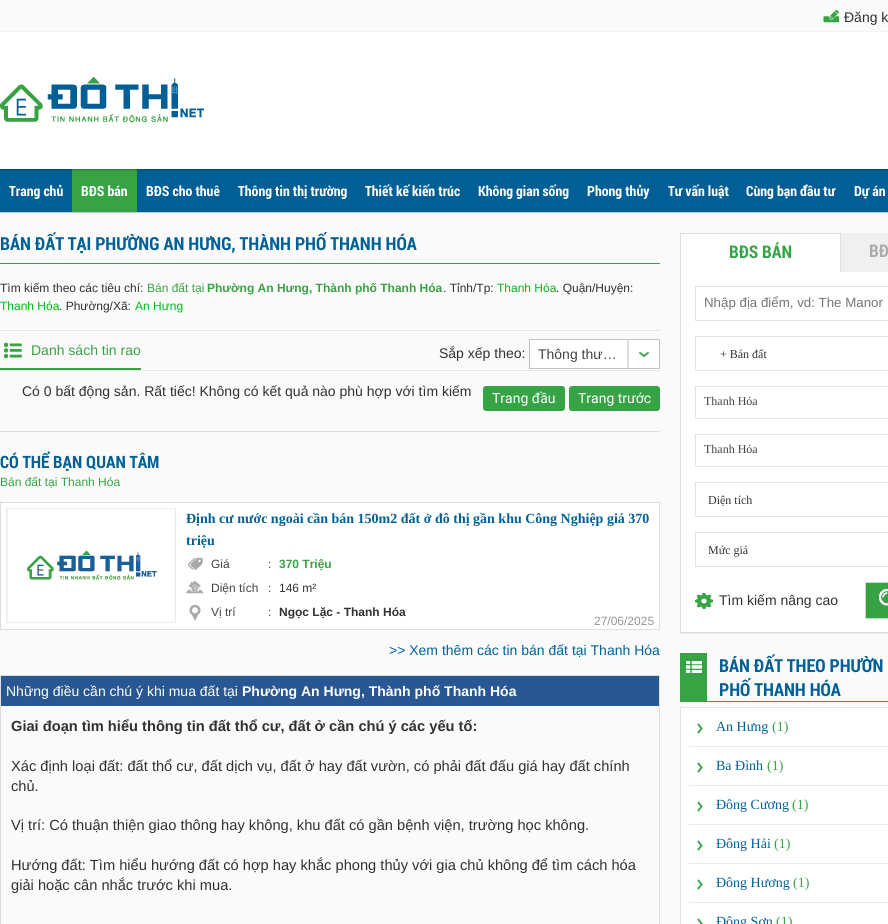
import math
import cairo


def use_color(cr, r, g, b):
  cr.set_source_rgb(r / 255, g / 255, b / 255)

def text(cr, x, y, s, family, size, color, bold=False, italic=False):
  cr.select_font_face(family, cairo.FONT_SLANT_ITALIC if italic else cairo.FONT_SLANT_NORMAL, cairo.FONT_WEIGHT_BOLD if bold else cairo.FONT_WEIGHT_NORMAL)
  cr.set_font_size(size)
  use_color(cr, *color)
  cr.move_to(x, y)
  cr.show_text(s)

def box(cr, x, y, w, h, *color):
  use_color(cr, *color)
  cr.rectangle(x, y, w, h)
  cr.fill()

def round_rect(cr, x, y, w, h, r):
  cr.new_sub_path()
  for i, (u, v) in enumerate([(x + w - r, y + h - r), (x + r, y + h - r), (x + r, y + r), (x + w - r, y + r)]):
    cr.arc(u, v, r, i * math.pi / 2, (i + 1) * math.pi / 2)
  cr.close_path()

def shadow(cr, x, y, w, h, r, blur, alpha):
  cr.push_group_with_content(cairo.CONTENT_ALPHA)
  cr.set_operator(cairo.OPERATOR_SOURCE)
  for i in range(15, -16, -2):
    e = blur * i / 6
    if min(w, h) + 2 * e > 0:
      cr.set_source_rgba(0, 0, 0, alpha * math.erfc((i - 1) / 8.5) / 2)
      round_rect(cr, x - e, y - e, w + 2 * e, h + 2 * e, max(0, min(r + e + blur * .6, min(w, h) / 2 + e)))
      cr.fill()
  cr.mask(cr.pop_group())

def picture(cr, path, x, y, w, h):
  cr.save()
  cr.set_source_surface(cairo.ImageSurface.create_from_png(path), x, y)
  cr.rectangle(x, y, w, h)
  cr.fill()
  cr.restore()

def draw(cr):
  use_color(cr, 255, 255, 255)
  cr.paint()
  box(cr, 0, 0, 888, 31, 250, 250, 250)
  box(cr, 0, 31, 888, 1, 244, 244, 244)
  picture(cr, "img_01.png", 823, 9, 16, 14)
  picture(cr, "img_02.png", 0, 77, 204, 46)
  picture(cr, "img_03.png", 0, 169, 888, 43)
  box(cr, 0, 212, 888, 1, 185, 204, 211)
  picture(cr, "img_04.png", 72, 169, 65, 43)
  box(cr, 0, 213, 888, 711, 250, 250, 250)
  box(cr, 0, 263, 660, 1, 56, 163, 69)
  box(cr, 0, 330, 660, 1, 231, 231, 231)
  box(cr, 0, 370, 660, 1, 231, 231, 231)
  picture(cr, "img_05.png", 4, 342, 18, 17)
  box(cr, 0, 368, 141, 2, 55, 163, 68)
  use_color(cr, 255, 255, 255)
  cr.rectangle(529.5, 339.5, 130, 29)
  cr.fill_preserve()
  use_color(cr, 202, 193, 186)
  cr.set_line_width(1)
  cr.stroke()
  picture(cr, "img_06.png", 628, 340, 21, 28)
  box(cr, 627, 340, 1, 28, 222, 222, 222)
  box(cr, 0, 431, 660, 1, 222, 222, 222)
  use_color(cr, 255, 255, 255)
  cr.rectangle(0.5, 502.5, 659, 127)
  cr.fill_preserve()
  use_color(cr, 222, 222, 222)
  cr.stroke()
  picture(cr, "img_07.png", 6, 508, 170, 115)
  picture(cr, "img_08.png", 188, 557, 15, 13)
  picture(cr, "img_09.png", 186, 581, 18, 13)
  picture(cr, "img_10.png", 189, 604, 12, 17)
  use_color(cr, 54, 164, 69)
  round_rect(cr, 483, 386, 82, 25, 3)
  cr.fill()
  round_rect(cr, 569, 386, 91, 25, 3)
  cr.fill()
  cr.rectangle(0.5, 675.5, 659, 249)
  use_color(cr, 222, 222, 222)
  cr.stroke()
  box(cr, 1, 676, 658, 30, 40, 87, 145)
  box(cr, 681, 234, 159, 38, 255, 255, 255)
  box(cr, 680, 233, 161, 1, 221, 221, 221)
  box(cr, 840, 233, 1, 39, 221, 221, 221)
  box(cr, 680, 233, 1, 39, 221, 221, 221)
  box(cr, 841, 233, 47, 39, 240, 240, 240)
  use_color(cr, 174, 174, 174)
  shadow(cr, 681, 274, 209, 359, 0, 0.5, 1)
  box(cr, 681, 272, 207, 360, 255, 255, 255)
  box(cr, 680, 632, 208, 1, 221, 221, 221)
  box(cr, 680, 272, 1, 361, 221, 221, 221)
  cr.rectangle(695.5, 286.5, 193, 34)
  use_color(cr, 227, 227, 227)
  cr.stroke()
  cr.rectangle(695.5, 336.5, 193, 34)
  cr.stroke()
  cr.rectangle(695.5, 386.5, 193, 32)
  cr.stroke()
  cr.rectangle(695.5, 434.5, 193, 32)
  cr.stroke()
  cr.rectangle(695.5, 482.5, 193, 34)
  cr.stroke()
  cr.rectangle(695.5, 532.5, 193, 34)
  cr.stroke()
  picture(cr, "img_11.png", 695, 593, 18, 16)
  picture(cr, "img_12.png", 865, 582, 23, 37)
  box(cr, 680, 653, 208, 49, 55, 163, 68)
  picture(cr, "img_13.png", 686, 661, 16, 12)
  box(cr, 707, 653, 181, 48, 250, 250, 250)
  use_color(cr, 255, 255, 255)
  cr.rectangle(680.5, 707.5, 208, 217)
  cr.fill_preserve()
  use_color(cr, 227, 227, 227)
  cr.stroke()
  picture(cr, "img_14.png", 697, 723, 6, 11)
  box(cr, 689, 746, 199, 1, 227, 238, 242)
  picture(cr, "img_14.png", 697, 762, 6, 11)
  box(cr, 689, 785, 199, 1, 227, 238, 242)
  picture(cr, "img_14.png", 697, 801, 6, 11)
  box(cr, 689, 824, 199, 1, 227, 238, 242)
  picture(cr, "img_14.png", 697, 840, 6, 11)
  box(cr, 689, 863, 199, 1, 227, 238, 242)
  picture(cr, "img_14.png", 697, 879, 6, 11)
  box(cr, 689, 902, 199, 1, 227, 238, 242)
  picture(cr, "img_15.png", 697, 918, 6, 6)
  text(cr, 844, 22, "Đăng k", "Liberation Sans", 14, (49, 49, 49))
  text(cr, 9, 196, "Trang chủ", "Roboto Condensed", 14, (255, 255, 255), bold=True)
  text(cr, 81, 196, "BĐS bán", "Roboto Condensed", 14, (255, 255, 255), bold=True)
  text(cr, 146, 196, "BĐS cho thuê", "Roboto Condensed", 14, (255, 255, 255), bold=True)
  text(cr, 238, 196, "Thông tin thị trường", "Roboto Condensed", 14, (255, 255, 255), bold=True)
  text(cr, 365, 196, "Thiết kế kiến trúc", "Roboto Condensed", 14, (255, 255, 255), bold=True)
  text(cr, 478, 196, "Không gian sống", "Roboto Condensed", 14, (255, 255, 255), bold=True)
  text(cr, 587, 196, "Phong thủy", "Roboto Condensed", 14, (255, 255, 255), bold=True)
  text(cr, 668, 196, "Tư vấn luật", "Roboto Condensed", 14, (255, 255, 255), bold=True)
  text(cr, 746, 196, "Cùng bạn đầu tư", "Roboto Condensed", 14, (255, 255, 255), bold=True)
  text(cr, 854, 196, "Dự án", "Roboto Condensed", 14, (255, 255, 255), bold=True)
  text(cr, 0, 250, "BÁN ĐẤT TẠI PHƯỜNG AN HƯNG, THÀNH PHỐ THANH HÓA", "Roboto Condensed", 18, (1, 96, 150), bold=True)
  text(cr, 0, 292, "Tìm kiếm theo các tiêu chí:", "Liberation Sans", 12, (49, 49, 49))
  text(cr, 147, 292, "Bán đất tại", "Liberation Sans", 12, (55, 163, 68))
  text(cr, 207, 292, "Phường An Hưng, Thành phố Thanh Hóa", "Liberation Sans", 12, (55, 163, 68), bold=True)
  text(cr, 443, 292, ". Tỉnh/Tp:", "Liberation Sans", 12, (49, 49, 49))
  text(cr, 497, 292, "Thanh Hóa", "Liberation Sans", 12, (2, 184, 24))
  text(cr, 556, 292, ". Quận/Huyện:", "Liberation Sans", 12, (49, 49, 49))
  text(cr, 0, 310, "Thanh Hóa", "Liberation Sans", 12, (2, 184, 24))
  text(cr, 59, 310, ". Phường/Xã:", "Liberation Sans", 12, (49, 49, 49))
  text(cr, 135, 310, "An Hưng", "Liberation Sans", 12, (2, 184, 24))
  text(cr, 31, 355, "Danh sách tin rao", "Liberation Sans", 14, (55, 163, 68))
  text(cr, 439, 358, "Sắp xếp theo:", "Liberation Sans", 14, (49, 49, 49))
  text(cr, 538, 359, "Thông thư…", "Liberation Sans", 14, (68, 68, 68))
  text(cr, 22, 396, "Có 0 bất động sản. Rất tiếc! Không có kết quả nào phù hợp với tìm kiếm", "Liberation Sans", 14, (49, 49, 49))
  text(cr, 0, 468, "CÓ THỂ BẠN QUAN TÂM", "Roboto Condensed", 17, (1, 96, 150), bold=True)
  text(cr, 0, 486, "Bán đất tại Thanh Hóa", "Liberation Sans", 12, (55, 163, 68))
  text(cr, 186, 523, "Định cư nước ngoài cần bán 150m2 đất ở đô thị gần khu Công Nghiệp giá 370", "Liberation Serif", 14, (1, 96, 150), bold=True)
  text(cr, 186, 545, "triệu", "Liberation Serif", 14, (1, 96, 150), bold=True)
  text(cr, 211, 568, "Giá", "Liberation Sans", 12, (68, 68, 68))
  text(cr, 268, 568, ":", "Liberation Sans", 12, (68, 68, 68))
  text(cr, 279, 568, "370 Triệu", "Liberation Sans", 12, (55, 163, 68), bold=True)
  text(cr, 211, 592, "Diện tích", "Liberation Sans", 12, (68, 68, 68))
  text(cr, 268, 592, ":", "Liberation Sans", 12, (68, 68, 68))
  text(cr, 279, 592, "146 m²", "Liberation Sans", 12, (49, 49, 49))
  text(cr, 211, 616, "Vị trí", "Liberation Sans", 12, (68, 68, 68))
  text(cr, 268, 616, ":", "Liberation Sans", 12, (68, 68, 68))
  text(cr, 279, 616, "Ngọc Lặc - Thanh Hóa", "Liberation Sans", 12, (49, 49, 49), bold=True)
  text(cr, 594, 625, "27/06/2025", "Liberation Sans", 12, (149, 149, 149))
  text(cr, 389, 655, ">> Xem thêm các tin bán đất tại Thanh Hóa", "Liberation Sans", 14, (1, 96, 150))
  text(cr, 492, 403, "Trang đầu", "Roboto", 14, (255, 255, 255))
  text(cr, 578, 403, "Trang trước", "Roboto", 14, (255, 255, 255))
  text(cr, 6, 696, "Những điều cần chú ý khi mua đất tại", "Liberation Sans", 14, (255, 255, 255))
  text(cr, 242, 696, "Phường An Hưng, Thành phố Thanh Hóa", "Liberation Sans", 14, (255, 255, 255), bold=True)
  text(cr, 11, 731, "Giai đoạn tìm hiểu thông tin đất thổ cư, đất ở cần chú ý các yếu tố:", "Liberation Sans", 14.65, (49, 49, 49), bold=True)
  text(cr, 11, 771, "Xác định loại đất: đất thổ cư, đất dịch vụ, đất ở hay đất vườn, có phải đất đấu giá hay đất chính", "Liberation Sans", 14.65, (49, 49, 49))
  text(cr, 11, 791, "chủ.", "Liberation Sans", 14.65, (49, 49, 49))
  text(cr, 11, 830, "Vị trí: Có thuận thiện giao thông hay không, khu đất có gần bệnh viện, trường học không.", "Liberation Sans", 14.65, (49, 49, 49))
  text(cr, 11, 870, "Hướng đất: Tìm hiểu hướng đất có hợp hay khắc phong thủy với gia chủ không để tìm cách hóa", "Liberation Sans", 14.65, (49, 49, 49))
  text(cr, 11, 890, "giải hoặc cân nhắc trước khi mua.", "Liberation Sans", 14.65, (49, 49, 49))
  text(cr, 729, 258, "BĐS BÁN", "Roboto Condensed", 17.5, (55, 163, 68), bold=True)
  text(cr, 869, 257, "BĐ", "Roboto Condensed", 17.5, (171, 171, 171), bold=True)
  text(cr, 704, 307, "Nhập địa điểm, vd: The Manor", "Liberation Sans", 13.3, (117, 117, 117))
  text(cr, 720, 358, "+ Bán đất", "Liberation Serif", 12, (49, 49, 49))
  text(cr, 704, 405, "Thanh Hóa", "Liberation Serif", 12, (68, 68, 68))
  text(cr, 704, 453, "Thanh Hóa", "Liberation Serif", 12, (68, 68, 68))
  text(cr, 708, 504, "Diện tích", "Liberation Serif", 12, (49, 49, 49))
  text(cr, 708, 554, "Mức giá", "Liberation Serif", 12, (49, 49, 49))
  text(cr, 719, 605, "Tìm kiếm nâng cao", "Liberation Sans", 14, (49, 49, 49))
  text(cr, 719, 672, "BÁN ĐẤT THEO PHƯỜN", "Roboto Condensed", 18, (1, 96, 150), bold=True)
  text(cr, 719, 696, "PHỐ THANH HÓA", "Roboto Condensed", 18, (1, 96, 150), bold=True)
  text(cr, 716, 731, "An Hưng", "Liberation Serif", 14, (1, 96, 150))
  text(cr, 772, 731, "(1)", "Liberation Serif", 14, (55, 163, 68))
  text(cr, 716, 770, "Ba Đình", "Liberation Serif", 14, (1, 96, 150))
  text(cr, 767, 770, "(1)", "Liberation Serif", 14, (55, 163, 68))
  text(cr, 716, 809, "Đông Cương", "Liberation Serif", 14, (1, 96, 150))
  text(cr, 792, 809, "(1)", "Liberation Serif", 14, (55, 163, 68))
  text(cr, 716, 848, "Đông Hải", "Liberation Serif", 14, (1, 96, 150))
  text(cr, 774, 848, "(1)", "Liberation Serif", 14, (55, 163, 68))
  text(cr, 716, 887, "Đông Hương", "Liberation Serif", 14, (1, 96, 150))
  text(cr, 793, 887, "(1)", "Liberation Serif", 14, (55, 163, 68))
  text(cr, 716, 926, "Đông Sơn", "Liberation Serif", 14, (1, 96, 150))
  text(cr, 776, 926, "(1)", "Liberation Serif", 14, (55, 163, 68))


surface = cairo.ImageSurface(cairo.FORMAT_RGB24, 888, 924)
cr = cairo.Context(surface)
options = cairo.FontOptions()
options.set_hint_metrics(cairo.HINT_METRICS_OFF)
options.set_hint_style(cairo.HINT_STYLE_NONE)
cr.set_font_options(options)
cr.set_miter_limit(4)
draw(cr)
surface.write_to_png("out.png")
